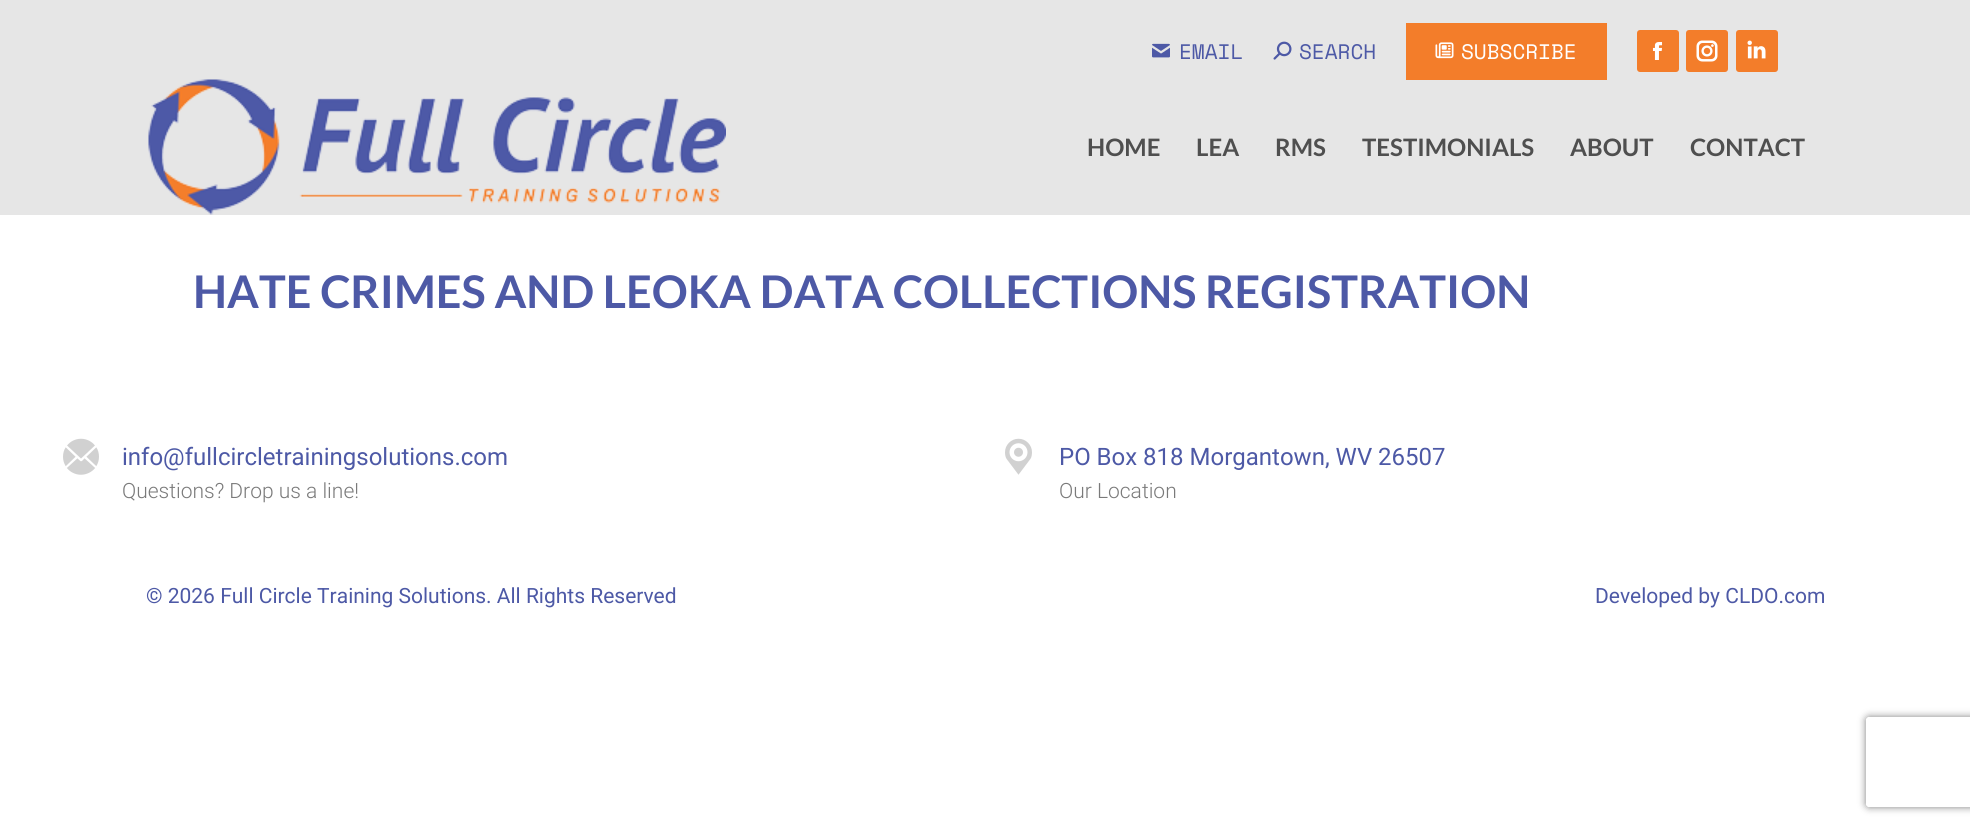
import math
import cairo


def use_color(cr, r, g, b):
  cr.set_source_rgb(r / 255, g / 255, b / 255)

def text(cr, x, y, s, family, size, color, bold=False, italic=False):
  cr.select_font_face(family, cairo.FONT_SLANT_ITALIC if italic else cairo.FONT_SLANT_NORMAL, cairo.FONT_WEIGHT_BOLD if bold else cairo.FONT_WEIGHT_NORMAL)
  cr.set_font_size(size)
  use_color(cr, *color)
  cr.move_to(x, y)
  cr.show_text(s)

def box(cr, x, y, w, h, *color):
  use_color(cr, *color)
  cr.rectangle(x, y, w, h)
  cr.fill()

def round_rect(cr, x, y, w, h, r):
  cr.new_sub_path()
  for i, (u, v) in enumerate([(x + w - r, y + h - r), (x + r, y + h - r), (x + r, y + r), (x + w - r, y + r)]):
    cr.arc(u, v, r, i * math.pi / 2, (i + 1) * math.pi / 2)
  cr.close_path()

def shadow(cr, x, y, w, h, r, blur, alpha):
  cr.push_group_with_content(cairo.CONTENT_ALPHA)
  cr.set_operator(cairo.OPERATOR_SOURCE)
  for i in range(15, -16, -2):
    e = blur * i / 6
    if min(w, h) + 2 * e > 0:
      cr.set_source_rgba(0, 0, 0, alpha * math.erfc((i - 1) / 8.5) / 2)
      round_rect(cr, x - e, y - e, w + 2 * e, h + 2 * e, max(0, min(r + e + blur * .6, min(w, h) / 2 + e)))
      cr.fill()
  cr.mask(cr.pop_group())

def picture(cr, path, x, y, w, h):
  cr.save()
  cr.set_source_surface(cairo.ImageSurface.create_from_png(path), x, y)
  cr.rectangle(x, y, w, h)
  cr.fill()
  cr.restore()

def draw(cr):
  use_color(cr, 255, 255, 255)
  cr.paint()
  box(cr, 0, 0, 1970, 215, 230, 230, 230)
  picture(cr, "img_01.png", 1152, 43, 18, 15)
  picture(cr, "img_02.png", 1273, 41, 19, 19)
  box(cr, 1406, 23, 201, 57, 243, 125, 42)
  picture(cr, "img_03.png", 1435, 42, 19, 17)
  round_rect(cr, 1637, 30, 42, 42, 3)
  cr.fill()
  picture(cr, "img_04.png", 1652, 42, 11, 18)
  round_rect(cr, 1686, 30, 42, 42, 3)
  cr.fill()
  picture(cr, "img_05.png", 1696, 40, 22, 22)
  round_rect(cr, 1736, 30, 42, 42, 3)
  cr.fill()
  picture(cr, "img_06.png", 1747, 40, 19, 19)
  picture(cr, "img_07.png", 148, 79, 578, 136)
  picture(cr, "img_08.png", 63, 438, 36, 37)
  picture(cr, "img_09.png", 1005, 438, 27, 37)
  cr.save()
  cr.set_fill_rule(cairo.FILL_RULE_EVEN_ODD)
  cr.new_path()
  cr.move_to(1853, 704)
  cr.line_to(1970, 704)
  cr.line_to(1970, 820)
  cr.line_to(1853, 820)
  cr.close_path()
  cr.move_to(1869, 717)
  cr.line_to(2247, 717)
  cr.curve_to(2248.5, 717, 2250, 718.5, 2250, 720)
  cr.line_to(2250, 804)
  cr.curve_to(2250, 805.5, 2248.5, 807, 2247, 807)
  cr.line_to(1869, 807)
  cr.curve_to(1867.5, 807, 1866, 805.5, 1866, 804)
  cr.line_to(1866, 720)
  cr.curve_to(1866, 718.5, 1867.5, 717, 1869, 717)
  cr.close_path()
  cr.clip()
  use_color(cr, 128, 128, 128)
  shadow(cr, 1866, 717, 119, 90, 3, 4, 1)
  cr.restore()
  text(cr, 1179, 59, "EMAIL", "Space Mono", 21, (77, 89, 166))
  text(cr, 1299, 59, "SEARCH", "Space Mono", 21, (77, 89, 166))
  text(cr, 1461, 59, "SUBSCRIBE", "Space Mono", 21, (255, 255, 255))
  text(cr, 1087, 156, "HOME", "Lato", 24, (79, 79, 79), bold=True)
  text(cr, 1196, 156, "LEA", "Lato", 24, (79, 79, 79), bold=True)
  text(cr, 1275, 156, "RMS", "Lato", 24, (79, 79, 79), bold=True)
  text(cr, 1362, 156, "TESTIMONIALS", "Lato", 24, (79, 79, 79), bold=True)
  text(cr, 1570, 156, "ABOUT", "Lato", 24, (79, 79, 79), bold=True)
  text(cr, 1690, 156, "CONTACT", "Lato", 24, (79, 79, 79), bold=True)
  text(cr, 193, 308, "HATE CRIMES AND LEOKA DATA COLLECTIONS REGISTRATION", "Lato", 45, (77, 89, 166), bold=True)
  text(cr, 122, 465, "info@fullcircletrainingsolutions.com", "Roboto", 24, (77, 89, 166))
  text(cr, 122, 498, "Questions? Drop us a line!", "Roboto Light", 21, (122, 122, 122))
  text(cr, 1059, 465, "PO Box 818 Morgantown, WV 26507", "Roboto", 24, (77, 89, 166))
  text(cr, 1059, 498, "Our Location", "Roboto Light", 21, (122, 122, 122))
  text(cr, 146, 603, "© 2026 Full Circle Training Solutions. All Rights Reserved", "Roboto", 21, (77, 89, 166))
  text(cr, 1595, 603, "Developed by CLDO.com", "Roboto", 21, (77, 89, 166))


surface = cairo.ImageSurface(cairo.FORMAT_RGB24, 1970, 827)
cr = cairo.Context(surface)
options = cairo.FontOptions()
options.set_hint_metrics(cairo.HINT_METRICS_OFF)
options.set_hint_style(cairo.HINT_STYLE_NONE)
cr.set_font_options(options)
cr.set_miter_limit(4)
draw(cr)
surface.write_to_png("out.png")
